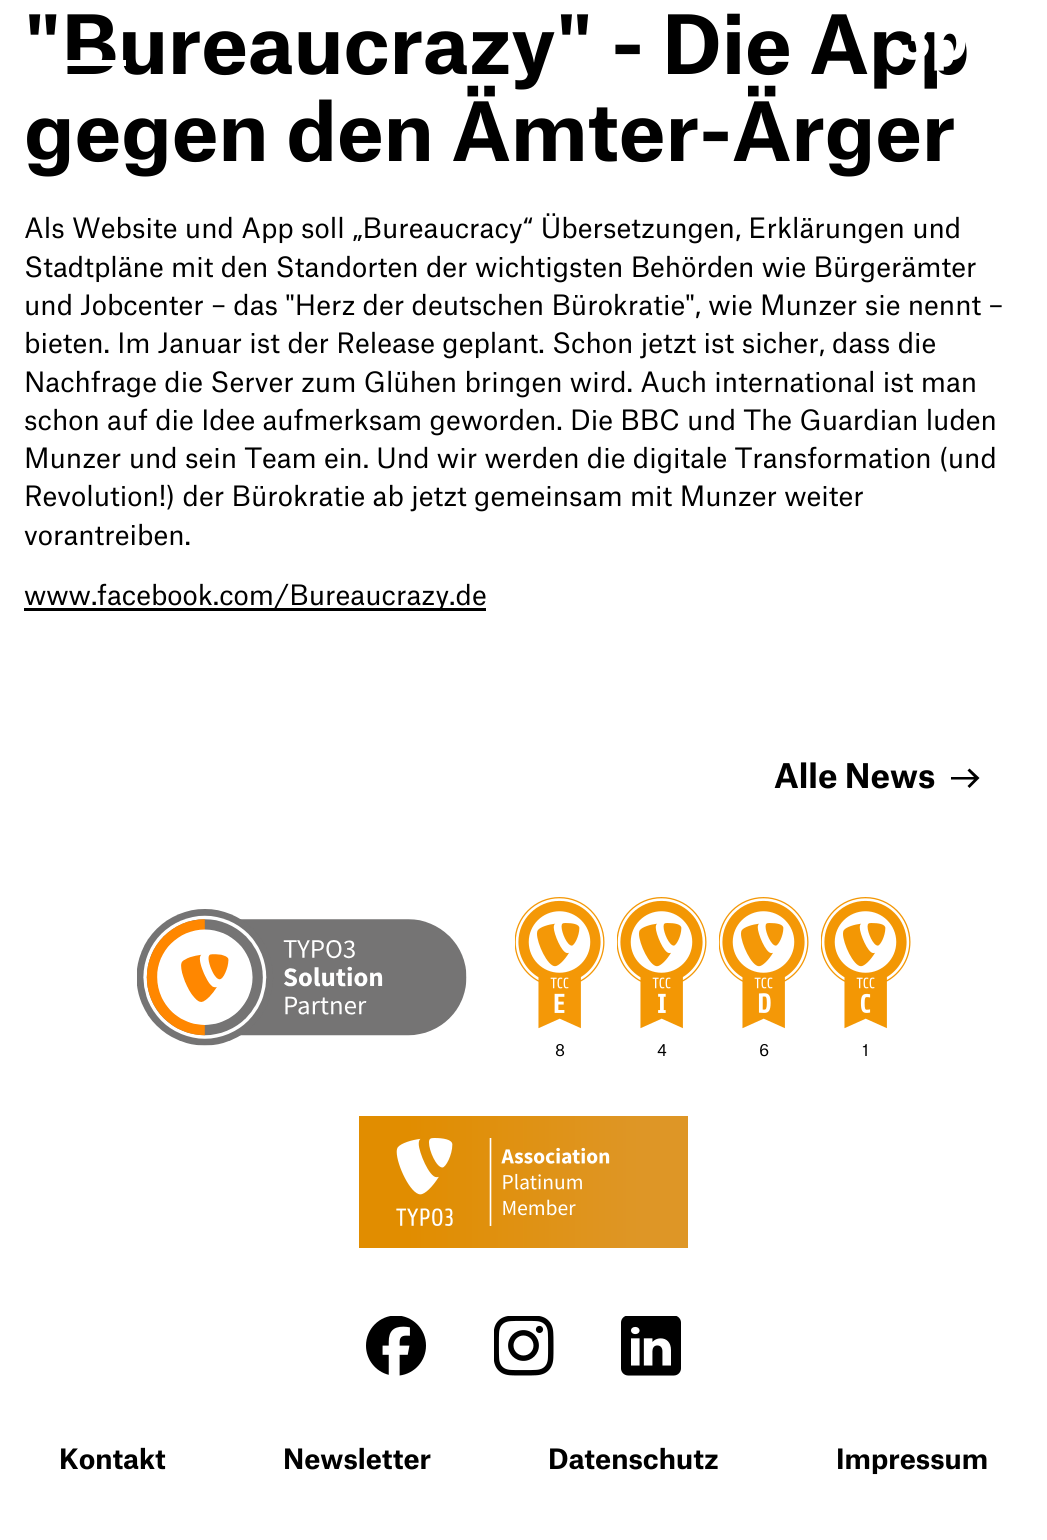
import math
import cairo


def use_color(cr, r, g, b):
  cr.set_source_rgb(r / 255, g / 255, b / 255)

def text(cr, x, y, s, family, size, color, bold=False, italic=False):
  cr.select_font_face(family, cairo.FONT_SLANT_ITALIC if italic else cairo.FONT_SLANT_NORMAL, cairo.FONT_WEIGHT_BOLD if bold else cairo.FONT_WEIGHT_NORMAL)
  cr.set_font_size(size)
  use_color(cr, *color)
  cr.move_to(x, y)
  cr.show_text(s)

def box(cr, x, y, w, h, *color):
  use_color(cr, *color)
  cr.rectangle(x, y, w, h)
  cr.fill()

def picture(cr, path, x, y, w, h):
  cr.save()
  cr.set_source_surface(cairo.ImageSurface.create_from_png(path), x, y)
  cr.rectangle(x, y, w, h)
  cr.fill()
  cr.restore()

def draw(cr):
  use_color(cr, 255, 255, 255)
  cr.paint()
  box(cr, 24, 608, 462, 3, 0, 0, 0)
  cr.new_path()
  cr.move_to(979.5, 778)
  cr.line_to(969.5, 768.5)
  cr.line_to(967.5, 770.5)
  cr.line_to(974, 777)
  cr.line_to(951, 777)
  cr.line_to(951, 779.5)
  cr.line_to(974, 779.5)
  cr.line_to(967.5, 786)
  cr.line_to(969.5, 788)
  cr.close_path()
  cr.fill()
  picture(cr, "img_02.png", 137, 909, 330, 137)
  picture(cr, "img_03.png", 515, 897, 90, 132)
  picture(cr, "img_04.png", 617, 897, 90, 132)
  picture(cr, "img_05.png", 719, 897, 90, 132)
  picture(cr, "img_06.png", 821, 897, 90, 132)
  picture(cr, "img_07.png", 359, 1116, 329, 132)
  picture(cr, "img_08.png", 366, 1316, 60, 60)
  picture(cr, "img_09.png", 494, 1316, 60, 60)
  picture(cr, "img_10.png", 621, 1316, 60, 60)
  text(cr, 24, 74, "\"Bureaucrazy\" - Die App", "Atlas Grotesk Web", 78, (0, 0, 0), bold=True)
  text(cr, 24, 161, "gegen den Ämter-Ärger", "Atlas Grotesk Web", 78, (0, 0, 0), bold=True)
  text(cr, 24, 238, "Als Website und App soll „Bureaucracy“ Übersetzungen, Erklärungen und", "Atlas Grotesk Web", 26.85, (0, 0, 0))
  text(cr, 24, 277, "Stadtpläne mit den Standorten der wichtigsten Behörden wie Bürgerämter", "Atlas Grotesk Web", 26.85, (0, 0, 0))
  text(cr, 24, 315, "und Jobcenter – das \"Herz der deutschen Bürokratie\", wie Munzer sie nennt –", "Atlas Grotesk Web", 26.85, (0, 0, 0))
  text(cr, 24, 353, "bieten. Im Januar ist der Release geplant. Schon jetzt ist sicher, dass die", "Atlas Grotesk Web", 26.85, (0, 0, 0))
  text(cr, 24, 392, "Nachfrage die Server zum Glühen bringen wird. Auch international ist man", "Atlas Grotesk Web", 26.85, (0, 0, 0))
  text(cr, 24, 430, "schon auf die Idee aufmerksam geworden. Die BBC und The Guardian luden", "Atlas Grotesk Web", 26.85, (0, 0, 0))
  text(cr, 24, 468, "Munzer und sein Team ein. Und wir werden die digitale Transformation (und", "Atlas Grotesk Web", 26.85, (0, 0, 0))
  text(cr, 24, 506, "Revolution!) der Bürokratie ab jetzt gemeinsam mit Munzer weiter", "Atlas Grotesk Web", 26.85, (0, 0, 0))
  text(cr, 24, 545, "vorantreiben.", "Atlas Grotesk Web", 26.85, (0, 0, 0))
  text(cr, 24, 605, "www.facebook.com/Bureaucrazy.de", "Atlas Grotesk Web", 26.85, (0, 0, 0))
  text(cr, 774, 788, "Alle News", "Atlas Grotesk Web", 32.5, (0, 0, 0), bold=True)
  box(cr, 67, 60, 59, 6, 255, 255, 255)
  picture(cr, "img_01.png", 902, 31, 64, 40)
  text(cr, 555, 1056, "8", "Atlas Grotesk Web", 16, (0, 0, 0))
  text(cr, 657, 1056, "4", "Atlas Grotesk Web", 16, (0, 0, 0))
  text(cr, 759, 1056, "6", "Atlas Grotesk Web", 16, (0, 0, 0))
  text(cr, 862, 1056, "1", "Atlas Grotesk Web", 16, (0, 0, 0))
  text(cr, 59, 1469, "Kontakt", "Atlas Grotesk Web", 26.85, (0, 0, 0), bold=True)
  text(cr, 283, 1469, "Newsletter", "Atlas Grotesk Web", 26.85, (0, 0, 0), bold=True)
  text(cr, 548, 1469, "Datenschutz", "Atlas Grotesk Web", 26.85, (0, 0, 0), bold=True)
  text(cr, 836, 1469, "Impressum", "Atlas Grotesk Web", 26.85, (0, 0, 0), bold=True)


surface = cairo.ImageSurface(cairo.FORMAT_RGB24, 1047, 1540)
cr = cairo.Context(surface)
options = cairo.FontOptions()
options.set_hint_metrics(cairo.HINT_METRICS_OFF)
options.set_hint_style(cairo.HINT_STYLE_NONE)
cr.set_font_options(options)
cr.set_miter_limit(4)
draw(cr)
surface.write_to_png("out.png")
